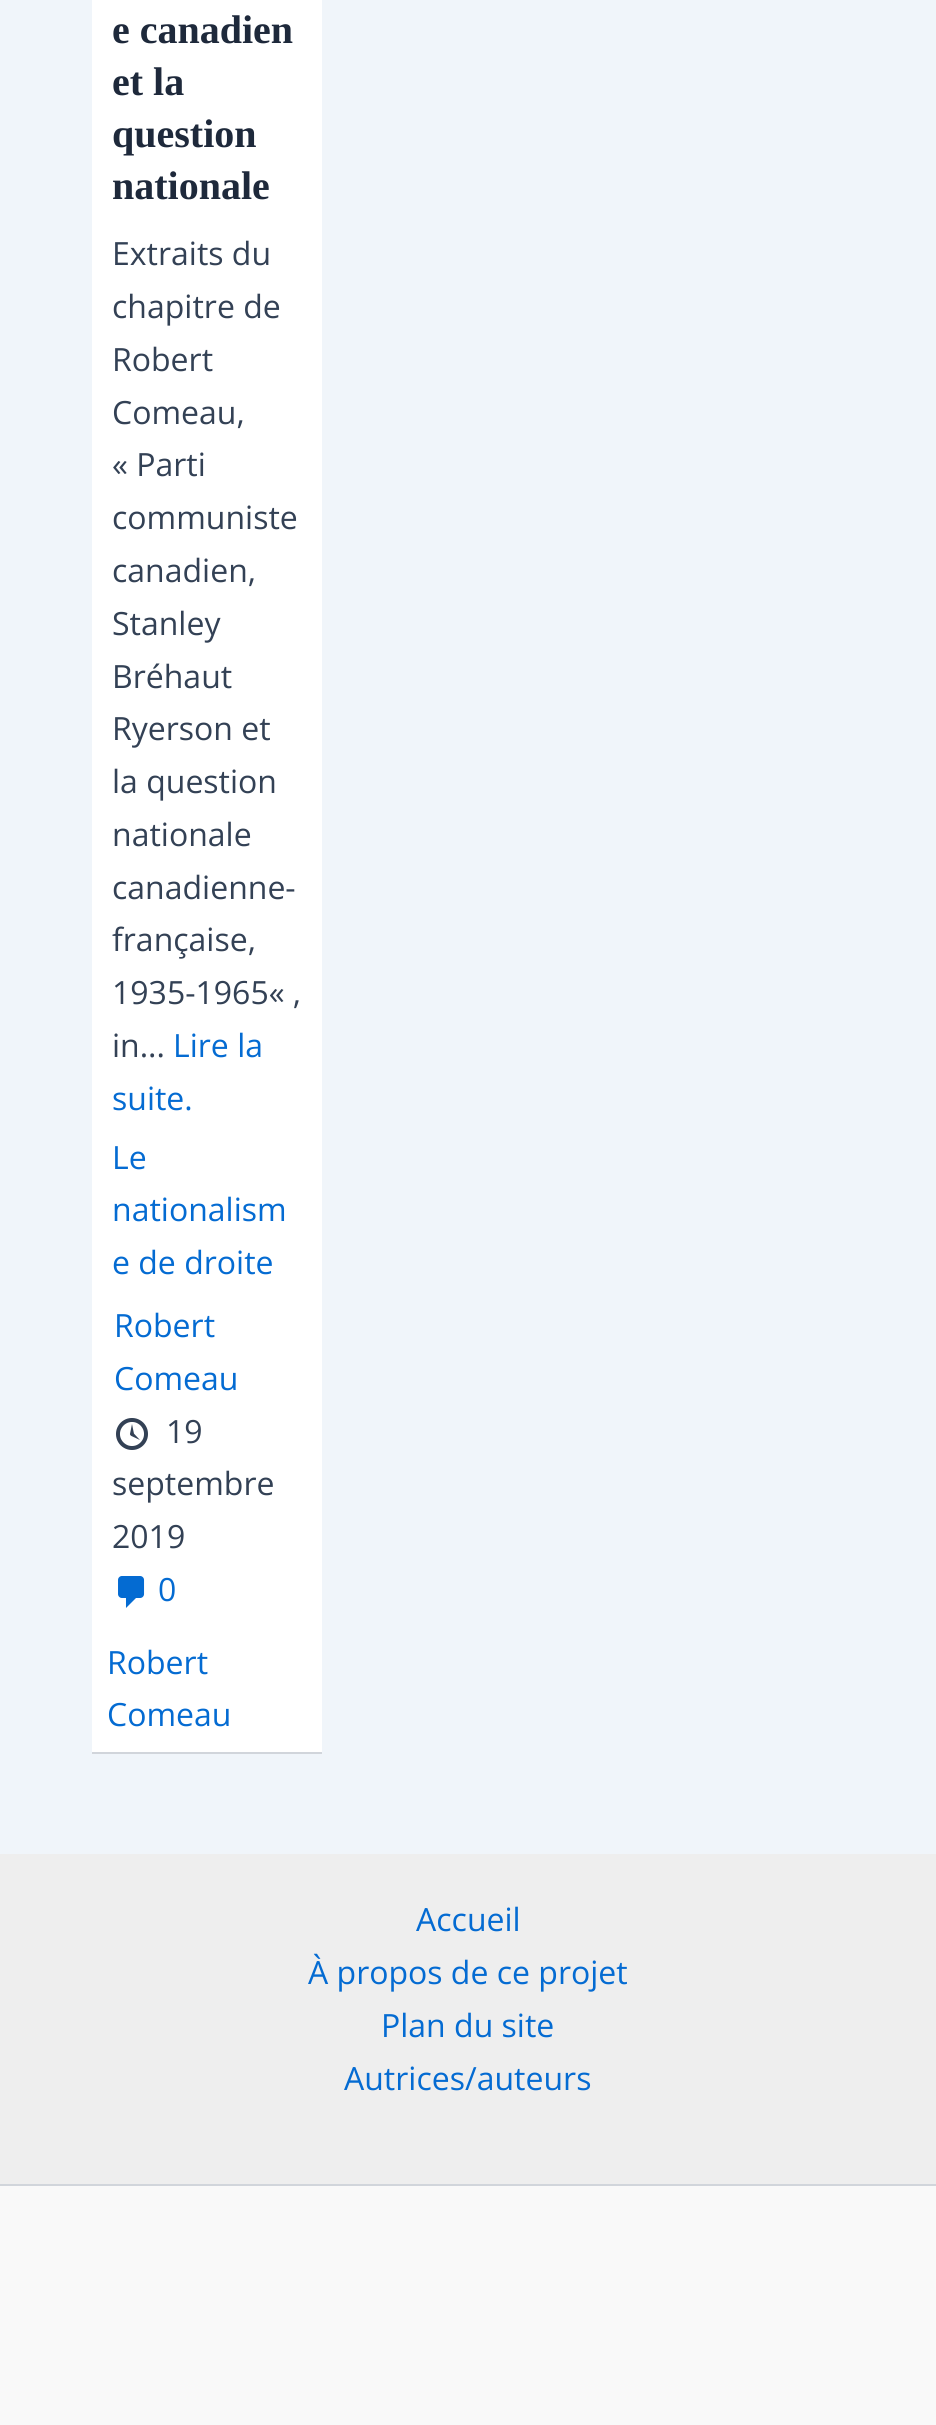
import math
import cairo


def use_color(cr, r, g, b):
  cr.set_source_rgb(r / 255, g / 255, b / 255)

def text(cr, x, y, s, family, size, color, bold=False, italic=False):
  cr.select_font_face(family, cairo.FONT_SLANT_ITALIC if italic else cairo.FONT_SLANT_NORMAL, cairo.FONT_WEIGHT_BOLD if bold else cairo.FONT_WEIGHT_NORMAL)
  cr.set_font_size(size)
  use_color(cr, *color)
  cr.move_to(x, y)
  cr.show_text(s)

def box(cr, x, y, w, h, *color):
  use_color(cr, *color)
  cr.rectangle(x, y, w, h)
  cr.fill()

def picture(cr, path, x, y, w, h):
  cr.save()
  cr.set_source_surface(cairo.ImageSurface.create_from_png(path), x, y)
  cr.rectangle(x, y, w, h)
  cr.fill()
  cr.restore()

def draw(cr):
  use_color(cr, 240, 245, 250)
  cr.paint()
  box(cr, 92, 0, 230, 1752, 255, 255, 255)
  box(cr, 92, 1752, 230, 2, 209, 213, 219)
  picture(cr, "img_01.png", 116, 1418, 32, 32)
  picture(cr, "img_02.png", 118, 1576, 27, 32)
  box(cr, 0, 1854, 936, 330, 238, 238, 238)
  box(cr, 0, 2186, 936, 239, 249, 249, 249)
  box(cr, 0, 2184, 936, 2, 209, 213, 219)
  text(cr, 112, 43, "e canadien", "Liberation Serif", 40, (30, 41, 59), bold=True)
  text(cr, 112, 95, "et la", "Liberation Serif", 40, (30, 41, 59), bold=True)
  text(cr, 112, 147, "question", "Liberation Serif", 40, (30, 41, 59), bold=True)
  text(cr, 112, 199, "nationale", "Liberation Serif", 40, (30, 41, 59), bold=True)
  text(cr, 112, 265, "Extraits du", "Open Sans", 32, (51, 65, 85))
  text(cr, 112, 318, "chapitre de", "Open Sans", 32, (51, 65, 85))
  text(cr, 112, 371, "Robert", "Open Sans", 32, (51, 65, 85))
  text(cr, 112, 424, "Comeau,", "Open Sans", 32, (51, 65, 85))
  text(cr, 112, 476, "« Parti", "Open Sans", 32, (51, 65, 85))
  text(cr, 112, 529, "communiste", "Open Sans", 32, (51, 65, 85))
  text(cr, 112, 582, "canadien,", "Open Sans", 32, (51, 65, 85))
  text(cr, 112, 635, "Stanley", "Open Sans", 32, (51, 65, 85))
  text(cr, 112, 688, "Bréhaut", "Open Sans", 32, (51, 65, 85))
  text(cr, 112, 740, "Ryerson et", "Open Sans", 32, (51, 65, 85))
  text(cr, 112, 793, "la question", "Open Sans", 32, (51, 65, 85))
  text(cr, 112, 846, "nationale", "Open Sans", 32, (51, 65, 85))
  text(cr, 112, 899, "canadienne-", "Open Sans", 32, (51, 65, 85))
  text(cr, 112, 951, "française,", "Open Sans", 32, (51, 65, 85))
  text(cr, 112, 1004, "1935-1965« ,", "Open Sans", 32, (51, 65, 85))
  text(cr, 112, 1057, "in...", "Open Sans", 32, (51, 65, 85))
  text(cr, 173, 1057, "Lire la", "Open Sans", 32, (4, 107, 210))
  text(cr, 112, 1110, "suite.", "Open Sans", 32, (4, 107, 210))
  text(cr, 112, 1169, "Le", "Open Sans", 32, (4, 107, 210))
  text(cr, 112, 1221, "nationalism", "Open Sans", 32, (4, 107, 210))
  text(cr, 112, 1274, "e de droite", "Open Sans", 32, (4, 107, 210))
  text(cr, 114, 1337, "Robert", "Open Sans", 32, (4, 107, 210))
  text(cr, 114, 1390, "Comeau", "Open Sans", 32, (4, 107, 210))
  text(cr, 166, 1443, "19", "Open Sans", 32, (51, 65, 85))
  text(cr, 112, 1495, "septembre", "Open Sans", 32, (51, 65, 85))
  text(cr, 112, 1548, "2019", "Open Sans", 32, (51, 65, 85))
  text(cr, 158, 1601, "0", "Open Sans", 32, (4, 107, 210))
  text(cr, 107, 1674, "Robert", "Open Sans", 32, (4, 107, 210))
  text(cr, 107, 1726, "Comeau", "Open Sans", 32, (4, 107, 210))
  text(cr, 416, 1931, "Accueil", "Open Sans", 32, (4, 107, 210))
  text(cr, 308, 1984, "À propos de ce projet", "Open Sans", 32, (4, 107, 210))
  text(cr, 381, 2037, "Plan du site", "Open Sans", 32, (4, 107, 210))
  text(cr, 344, 2090, "Autrices/auteurs", "Open Sans", 32, (4, 107, 210))


surface = cairo.ImageSurface(cairo.FORMAT_RGB24, 936, 2425)
cr = cairo.Context(surface)
options = cairo.FontOptions()
options.set_hint_metrics(cairo.HINT_METRICS_OFF)
options.set_hint_style(cairo.HINT_STYLE_NONE)
cr.set_font_options(options)
cr.set_miter_limit(4)
draw(cr)
surface.write_to_png("out.png")
